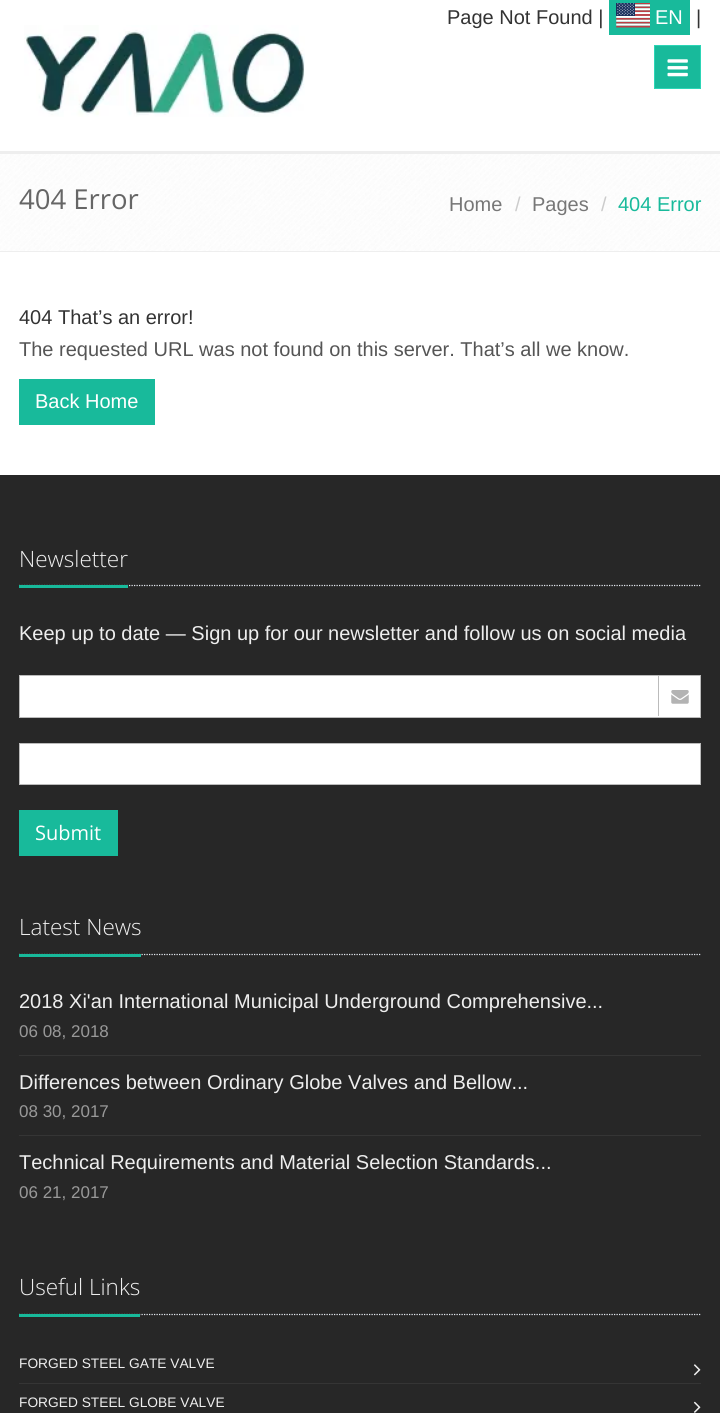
import math
import cairo


def use_color(cr, r, g, b):
  cr.set_source_rgb(r / 255, g / 255, b / 255)

def text(cr, x, y, s, family, size, color, bold=False, italic=False):
  cr.select_font_face(family, cairo.FONT_SLANT_ITALIC if italic else cairo.FONT_SLANT_NORMAL, cairo.FONT_WEIGHT_BOLD if bold else cairo.FONT_WEIGHT_NORMAL)
  cr.set_font_size(size)
  use_color(cr, *color)
  cr.move_to(x, y)
  cr.show_text(s)

def box(cr, x, y, w, h, *color):
  use_color(cr, *color)
  cr.rectangle(x, y, w, h)
  cr.fill()

def picture(cr, path, x, y, w, h):
  cr.save()
  cr.set_source_surface(cairo.ImageSurface.create_from_png(path), x, y)
  cr.rectangle(x, y, w, h)
  cr.fill()
  cr.restore()

def draw(cr):
  use_color(cr, 255, 255, 255)
  cr.paint()
  box(cr, 0, 151, 720, 3, 238, 238, 238)
  box(cr, 609, 0, 81, 35, 24, 186, 155)
  picture(cr, "img_01.png", 616, 3, 34, 25)
  picture(cr, "img_02.png", 24, 25, 281, 92)
  cr.rectangle(654.5, 45.5, 46, 43)
  cr.fill_preserve()
  use_color(cr, 44, 213, 182)
  cr.set_line_width(1)
  cr.stroke()
  picture(cr, "img_03.png", 667, 59, 21, 18)
  picture(cr, "img_04.png", 0, 154, 720, 97)
  box(cr, 0, 251, 720, 1, 238, 238, 238)
  box(cr, 19, 379, 136, 46, 24, 186, 155)
  box(cr, 0, 475, 720, 938, 39, 39, 39)
  cr.new_path()
  cr.move_to(19, 585.5)
  cr.line_to(701, 585.5)
  use_color(cr, 228, 233, 240)
  cr.set_line_width(1.2)
  cr.set_dash([1.25, 1.25])
  cr.stroke()
  box(cr, 19, 585, 109, 3, 24, 186, 155)
  use_color(cr, 255, 255, 255)
  cr.rectangle(19.5, 675.5, 681, 42)
  cr.fill_preserve()
  use_color(cr, 187, 187, 187)
  cr.set_line_width(1)
  cr.set_dash([])
  cr.stroke()
  box(cr, 658, 676, 1, 40, 187, 187, 187)
  picture(cr, "img_05.png", 671, 690, 18, 14)
  use_color(cr, 255, 255, 255)
  cr.rectangle(19.5, 743.5, 681, 41)
  cr.fill_preserve()
  use_color(cr, 187, 187, 187)
  cr.stroke()
  box(cr, 19, 810, 99, 46, 24, 186, 155)
  cr.new_path()
  cr.move_to(19, 954.5)
  cr.line_to(701, 954.5)
  use_color(cr, 228, 233, 240)
  cr.set_line_width(1.2)
  cr.set_dash([1.25, 1.25])
  cr.stroke()
  box(cr, 19, 954, 122, 3, 24, 186, 155)
  box(cr, 19, 1055, 682, 1, 53, 53, 53)
  box(cr, 19, 1135, 682, 1, 53, 53, 53)
  cr.new_path()
  cr.move_to(19, 1314.5)
  cr.line_to(701, 1314.5)
  use_color(cr, 228, 233, 240)
  cr.stroke()
  box(cr, 19, 1314, 121, 3, 24, 186, 155)
  picture(cr, "img_06.png", 693, 1364, 8, 12)
  box(cr, 19, 1383, 682, 1, 53, 53, 53)
  picture(cr, "img_07.png", 693, 1401, 8, 12)
  text(cr, 447, 24, "Page Not Found |", "Liberation Sans", 20, (51, 51, 51))
  text(cr, 655, 24, "EN", "Liberation Sans", 20, (255, 255, 255))
  text(cr, 696, 24, "|", "Liberation Sans", 20, (51, 51, 51))
  text(cr, 19, 209, "404 Error", "Open Sans", 27.5, (102, 102, 102))
  text(cr, 449, 211, "Home", "Liberation Sans", 20, (119, 119, 119))
  text(cr, 515, 211, "/", "Liberation Sans", 20, (204, 204, 204))
  text(cr, 532, 211, "Pages", "Liberation Sans", 20, (119, 119, 119))
  text(cr, 601, 211, "/", "Liberation Sans", 20, (204, 204, 204))
  text(cr, 618, 211, "404 Error", "Liberation Sans", 20, (24, 186, 155))
  text(cr, 19, 324, "404 That’s an error!", "Liberation Sans", 20, (51, 51, 51))
  text(cr, 19, 356, "The requested URL was not found on this server. That’s all we know.", "Liberation Sans", 20, (85, 85, 85))
  text(cr, 35, 408, "Back Home", "Liberation Sans", 20, (255, 255, 255))
  text(cr, 19, 567, "Newsletter", "Open Sans Light", 22.5, (238, 238, 238))
  text(cr, 19, 640, "Keep up to date — Sign up for our newsletter and follow us on social media", "Liberation Sans", 20, (238, 238, 238))
  text(cr, 35, 840, "Submit", "Open Sans", 20, (255, 255, 255))
  text(cr, 19, 935, "Latest News", "Open Sans Light", 22.5, (238, 238, 238))
  text(cr, 19, 1008, "2018 Xi'an International Municipal Underground Comprehensive...", "Liberation Sans", 20, (238, 238, 238))
  text(cr, 19, 1037, "06 08, 2018", "Liberation Sans", 17, (153, 153, 153))
  text(cr, 19, 1089, "Differences between Ordinary Globe Valves and Bellow...", "Liberation Sans", 20, (238, 238, 238))
  text(cr, 19, 1117, "08 30, 2017", "Liberation Sans", 17, (153, 153, 153))
  text(cr, 19, 1169, "Technical Requirements and Material Selection Standards...", "Liberation Sans", 20, (238, 238, 238))
  text(cr, 19, 1198, "06 21, 2017", "Liberation Sans", 17, (153, 153, 153))
  text(cr, 19, 1295, "Useful Links", "Open Sans Light", 22.5, (238, 238, 238))
  text(cr, 19, 1368, "FORGED STEEL GATE VALVE", "Liberation Sans", 13.75, (238, 238, 238))
  text(cr, 19, 1407, "FORGED STEEL GLOBE VALVE", "Liberation Sans", 13.75, (238, 238, 238))


surface = cairo.ImageSurface(cairo.FORMAT_RGB24, 720, 1413)
cr = cairo.Context(surface)
options = cairo.FontOptions()
options.set_hint_metrics(cairo.HINT_METRICS_OFF)
options.set_hint_style(cairo.HINT_STYLE_NONE)
cr.set_font_options(options)
cr.set_miter_limit(4)
draw(cr)
surface.write_to_png("out.png")
